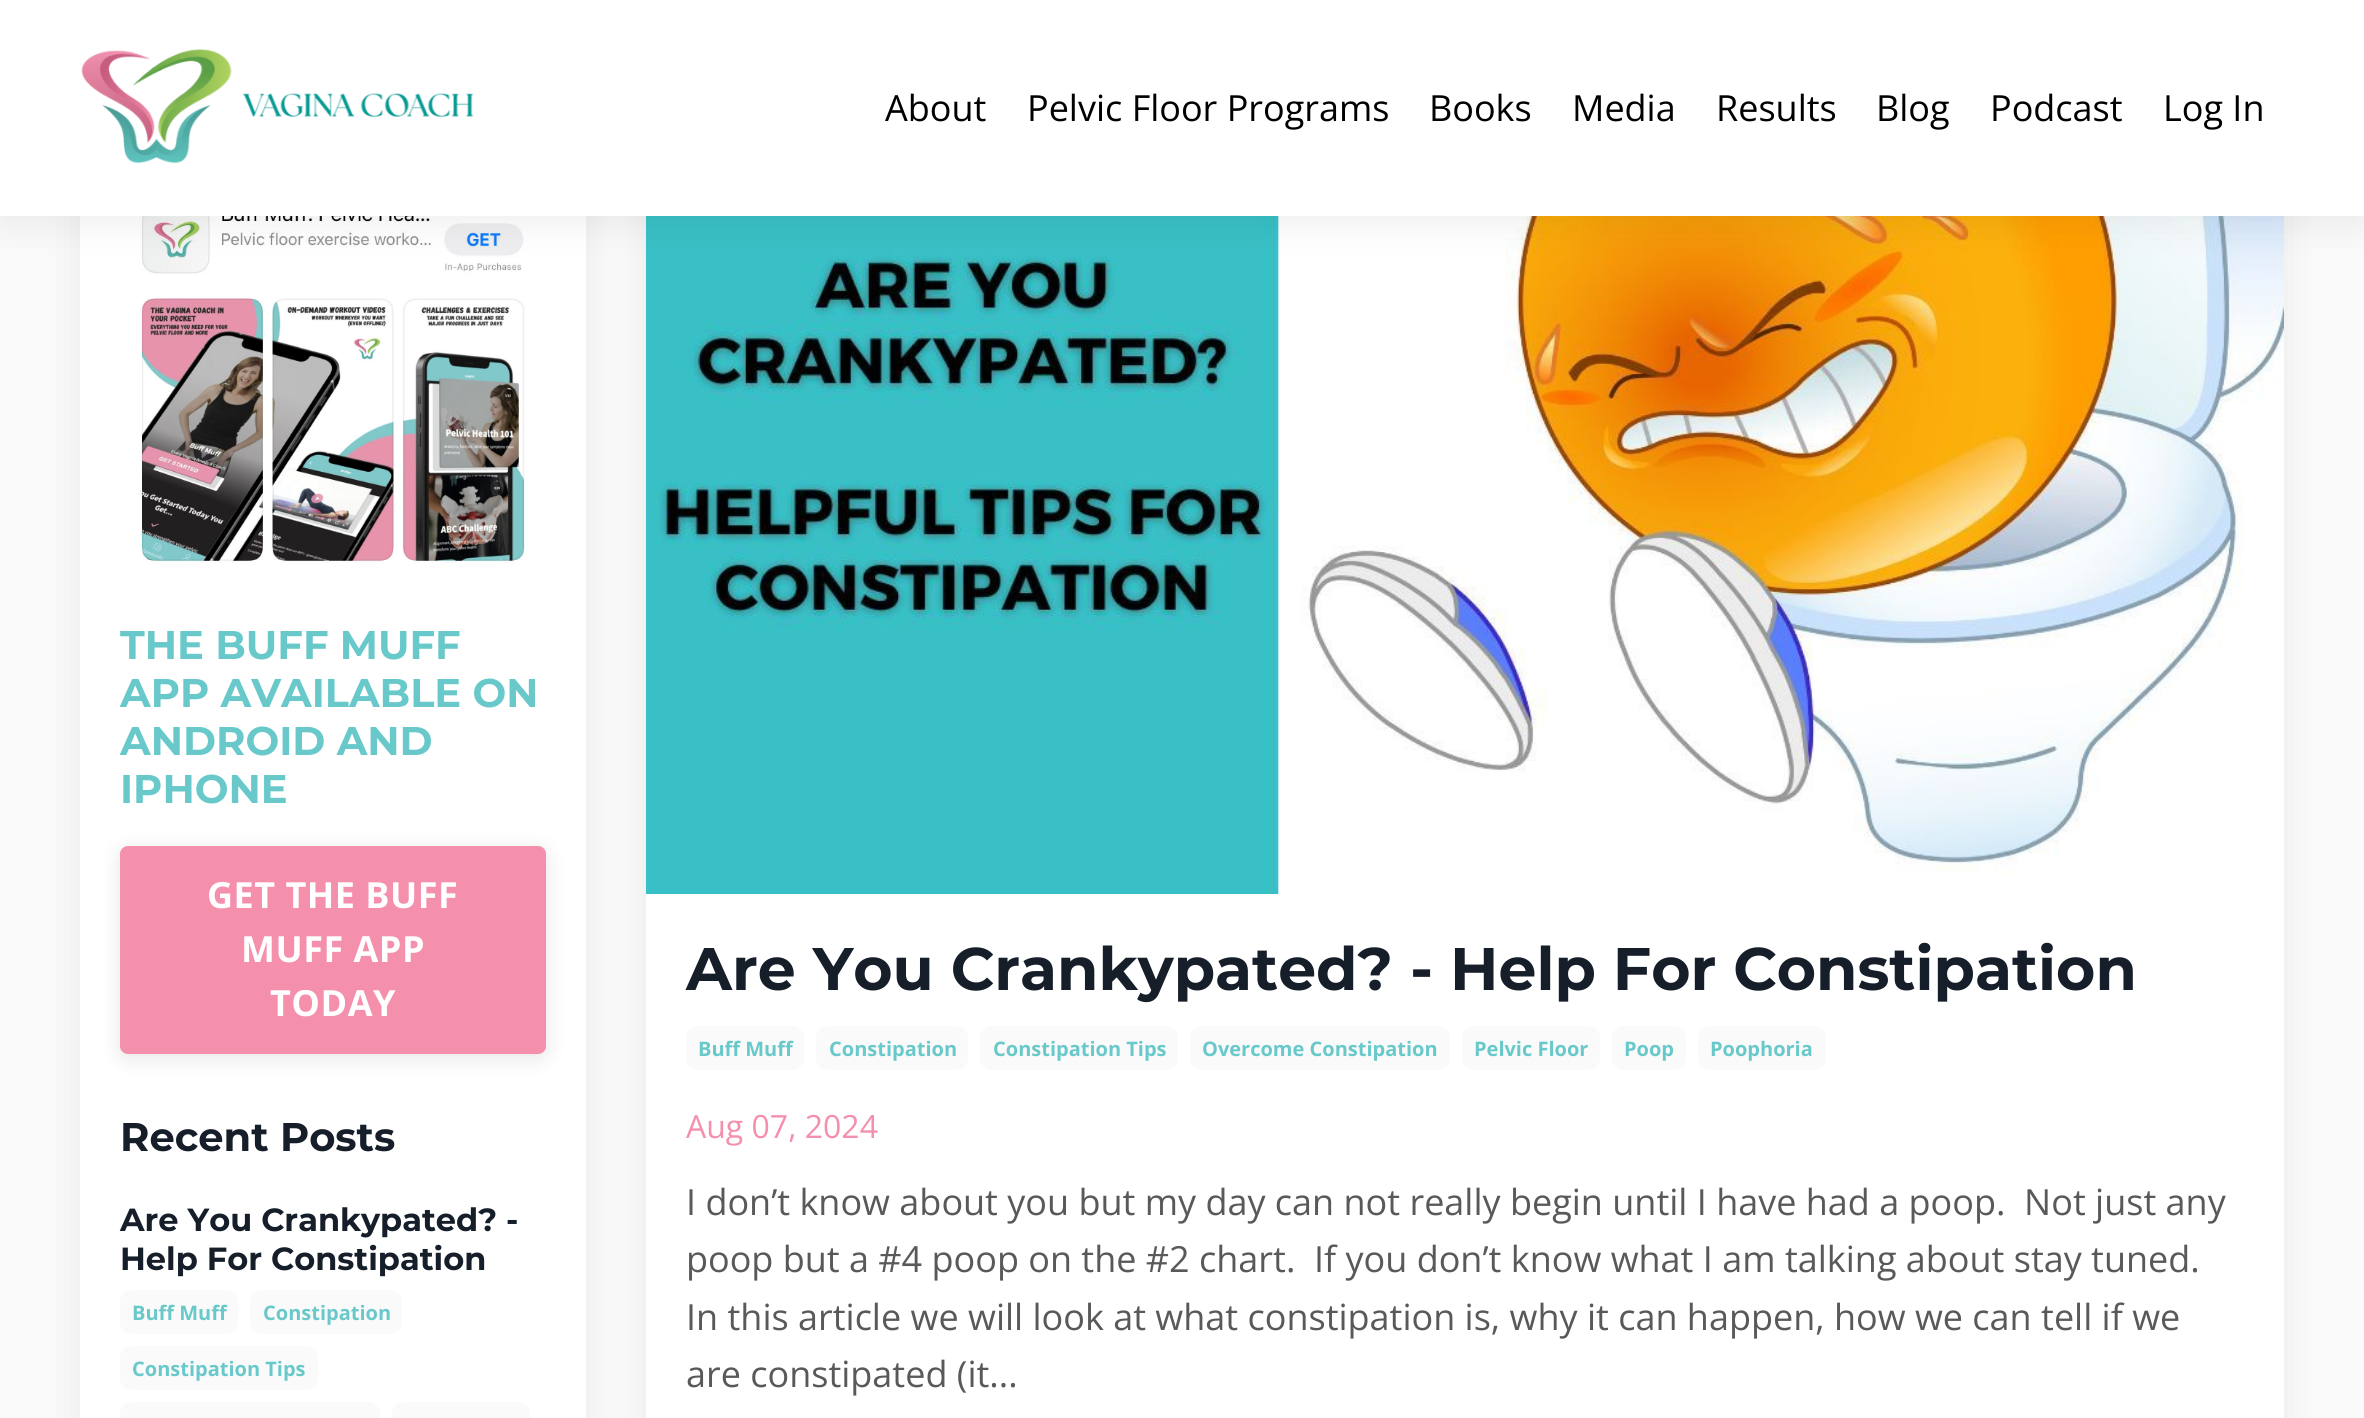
import math
import cairo


def use_color(cr, r, g, b):
  cr.set_source_rgb(r / 255, g / 255, b / 255)

def text(cr, x, y, s, family, size, color, bold=False, italic=False):
  cr.select_font_face(family, cairo.FONT_SLANT_ITALIC if italic else cairo.FONT_SLANT_NORMAL, cairo.FONT_WEIGHT_BOLD if bold else cairo.FONT_WEIGHT_NORMAL)
  cr.set_font_size(size)
  use_color(cr, *color)
  cr.move_to(x, y)
  cr.show_text(s)

def spaced_text(cr, x, y, s, letter, word):
  cr.move_to(x, y)
  for ch in s:
    cr.show_text(ch)
    cr.rel_move_to(letter + word * (ch == ' '), 0)

def box(cr, x, y, w, h, *color):
  use_color(cr, *color)
  cr.rectangle(x, y, w, h)
  cr.fill()

def round_rect(cr, x, y, w, h, r):
  cr.new_sub_path()
  for i, (u, v) in enumerate([(x + w - r, y + h - r), (x + r, y + h - r), (x + r, y + r), (x + w - r, y + r)]):
    cr.arc(u, v, r, i * math.pi / 2, (i + 1) * math.pi / 2)
  cr.close_path()

def shadow(cr, x, y, w, h, r, blur, alpha):
  cr.push_group_with_content(cairo.CONTENT_ALPHA)
  cr.set_operator(cairo.OPERATOR_SOURCE)
  for i in range(15, -16, -2):
    e = blur * i / 6
    if min(w, h) + 2 * e > 0:
      cr.set_source_rgba(0, 0, 0, alpha * math.erfc((i - 1) / 8.5) / 2)
      round_rect(cr, x - e, y - e, w + 2 * e, h + 2 * e, max(0, min(r + e + blur * .6, min(w, h) / 2 + e)))
      cr.fill()
  cr.mask(cr.pop_group())

def picture(cr, path, x, y, w, h):
  cr.save()
  cr.set_source_surface(cairo.ImageSurface.create_from_png(path), x, y)
  cr.rectangle(x, y, w, h)
  cr.fill()
  cr.restore()

def draw(cr):
  use_color(cr, 250, 250, 250)
  cr.paint()
  use_color(cr, 0, 0, 0)
  shadow(cr, 80, -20, 506, 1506, 8, 20, 0.07)
  box(cr, 80, 216, 506, 1202, 255, 255, 255)
  picture(cr, "img_02.png", 120, 216, 426, 347)
  use_color(cr, 0, 0, 0)
  shadow(cr, 646, -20, 1638, 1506, 8, 20, 0.07)
  picture(cr, "img_03.png", 646, 216, 1638, 678)
  shadow(cr, 0, 8, 2364, 216, 0, 20, 0.07)
  box(cr, 0, 0, 2364, 216, 255, 255, 255)
  picture(cr, "img_01.png", 81, 49, 393, 115)
  use_color(cr, 0, 0, 0)
  shadow(cr, 120, 850, 426, 208, 8, 10, 0.1)
  use_color(cr, 244, 143, 172)
  round_rect(cr, 122, 848, 422, 204, 6)
  cr.fill_preserve()
  cr.set_line_width(4)
  cr.stroke()
  use_color(cr, 250, 250, 250)
  round_rect(cr, 120, 1290, 118, 44, 12)
  cr.fill()
  round_rect(cr, 250, 1290, 152, 44, 12)
  cr.fill()
  round_rect(cr, 120, 1346, 198, 44, 12)
  cr.fill()
  round_rect(cr, 120, 1402, 260, 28, 12)
  cr.fill()
  round_rect(cr, 392, 1402, 138, 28, 12)
  cr.fill()
  box(cr, 646, 894, 1638, 524, 255, 255, 255)
  use_color(cr, 250, 250, 250)
  round_rect(cr, 686, 1026, 118, 44, 12)
  cr.fill()
  round_rect(cr, 816, 1026, 152, 44, 12)
  cr.fill()
  round_rect(cr, 980, 1026, 198, 44, 12)
  cr.fill()
  round_rect(cr, 1190, 1026, 260, 44, 12)
  cr.fill()
  round_rect(cr, 1462, 1026, 138, 44, 12)
  cr.fill()
  round_rect(cr, 1612, 1026, 74, 44, 12)
  cr.fill()
  round_rect(cr, 1698, 1026, 128, 44, 12)
  cr.fill()
  text(cr, 885, 121, "About", "Open Sans", 36, (0, 0, 0))
  text(cr, 1027, 121, "Pelvic Floor Programs", "Open Sans", 36, (0, 0, 0))
  text(cr, 1429, 121, "Books", "Open Sans", 36, (0, 0, 0))
  text(cr, 1572, 121, "Media", "Open Sans", 36, (0, 0, 0))
  text(cr, 1716, 121, "Results", "Open Sans", 36, (0, 0, 0))
  text(cr, 1876, 121, "Blog", "Open Sans", 36, (0, 0, 0))
  text(cr, 1990, 121, "Podcast", "Open Sans", 36, (0, 0, 0))
  text(cr, 2163, 121, "Log In", "Open Sans", 36, (0, 0, 0))
  text(cr, 120, 659, "THE BUFF MUFF", "Montserrat", 40, (105, 201, 202), bold=True)
  text(cr, 120, 707, "APP AVAILABLE ON", "Montserrat", 40, (105, 201, 202), bold=True)
  text(cr, 120, 755, "ANDROID AND", "Montserrat", 40, (105, 201, 202), bold=True)
  text(cr, 120, 803, "IPHONE", "Montserrat", 40, (105, 201, 202), bold=True)
  cr.select_font_face("Open Sans", cairo.FONT_SLANT_NORMAL, cairo.FONT_WEIGHT_BOLD)
  cr.set_font_size(36)
  use_color(cr, 255, 255, 255)
  spaced_text(cr, 207, 908, "GET THE BUFF", 0.5, 0)
  spaced_text(cr, 241, 962, "MUFF APP", 0.5, 0)
  spaced_text(cr, 270, 1016, "TODAY", 0.5, 0)
  text(cr, 120, 1151, "Recent Posts", "Montserrat", 40, (22, 30, 42), bold=True)
  text(cr, 120, 1231, "Are You Crankypated? -", "Montserrat", 32, (22, 30, 42), bold=True)
  text(cr, 120, 1270, "Help For Constipation", "Montserrat", 32, (22, 30, 42), bold=True)
  text(cr, 132, 1320, "Buff Muff", "Open Sans", 20, (105, 201, 202), bold=True)
  text(cr, 263, 1320, "Constipation", "Open Sans", 20, (105, 201, 202), bold=True)
  text(cr, 132, 1376, "Constipation Tips", "Open Sans", 20, (105, 201, 202), bold=True)
  text(cr, 686, 990, "Are You Crankypated? - Help For Constipation", "Montserrat", 60, (22, 30, 42), bold=True)
  text(cr, 698, 1056, "Buff Muff", "Open Sans", 20, (105, 201, 202), bold=True)
  text(cr, 829, 1056, "Constipation", "Open Sans", 20, (105, 201, 202), bold=True)
  text(cr, 993, 1056, "Constipation Tips", "Open Sans", 20, (105, 201, 202), bold=True)
  text(cr, 1202, 1056, "Overcome Constipation", "Open Sans", 20, (105, 201, 202), bold=True)
  text(cr, 1474, 1056, "Pelvic Floor", "Open Sans", 20, (105, 201, 202), bold=True)
  text(cr, 1624, 1056, "Poop", "Open Sans", 20, (105, 201, 202), bold=True)
  text(cr, 1710, 1056, "Poophoria", "Open Sans", 20, (105, 201, 202), bold=True)
  text(cr, 686, 1138, "Aug 07, 2024", "Open Sans", 32, (244, 143, 172))
  text(cr, 686, 1215, "I don’t know about you but my day can not really begin until I have had a poop.  Not just any", "Open Sans", 36, (89, 89, 89))
  text(cr, 686, 1272, "poop but a #4 poop on the #2 chart.  If you don’t know what I am talking about stay tuned.", "Open Sans", 36, (89, 89, 89))
  text(cr, 686, 1330, "In this article we will look at what constipation is, why it can happen, how we can tell if we", "Open Sans", 36, (89, 89, 89))
  text(cr, 686, 1387, "are constipated (it...", "Open Sans", 36, (89, 89, 89))


surface = cairo.ImageSurface(cairo.FORMAT_RGB24, 2364, 1418)
cr = cairo.Context(surface)
options = cairo.FontOptions()
options.set_hint_metrics(cairo.HINT_METRICS_OFF)
options.set_hint_style(cairo.HINT_STYLE_NONE)
cr.set_font_options(options)
cr.set_miter_limit(4)
draw(cr)
surface.write_to_png("out.png")
